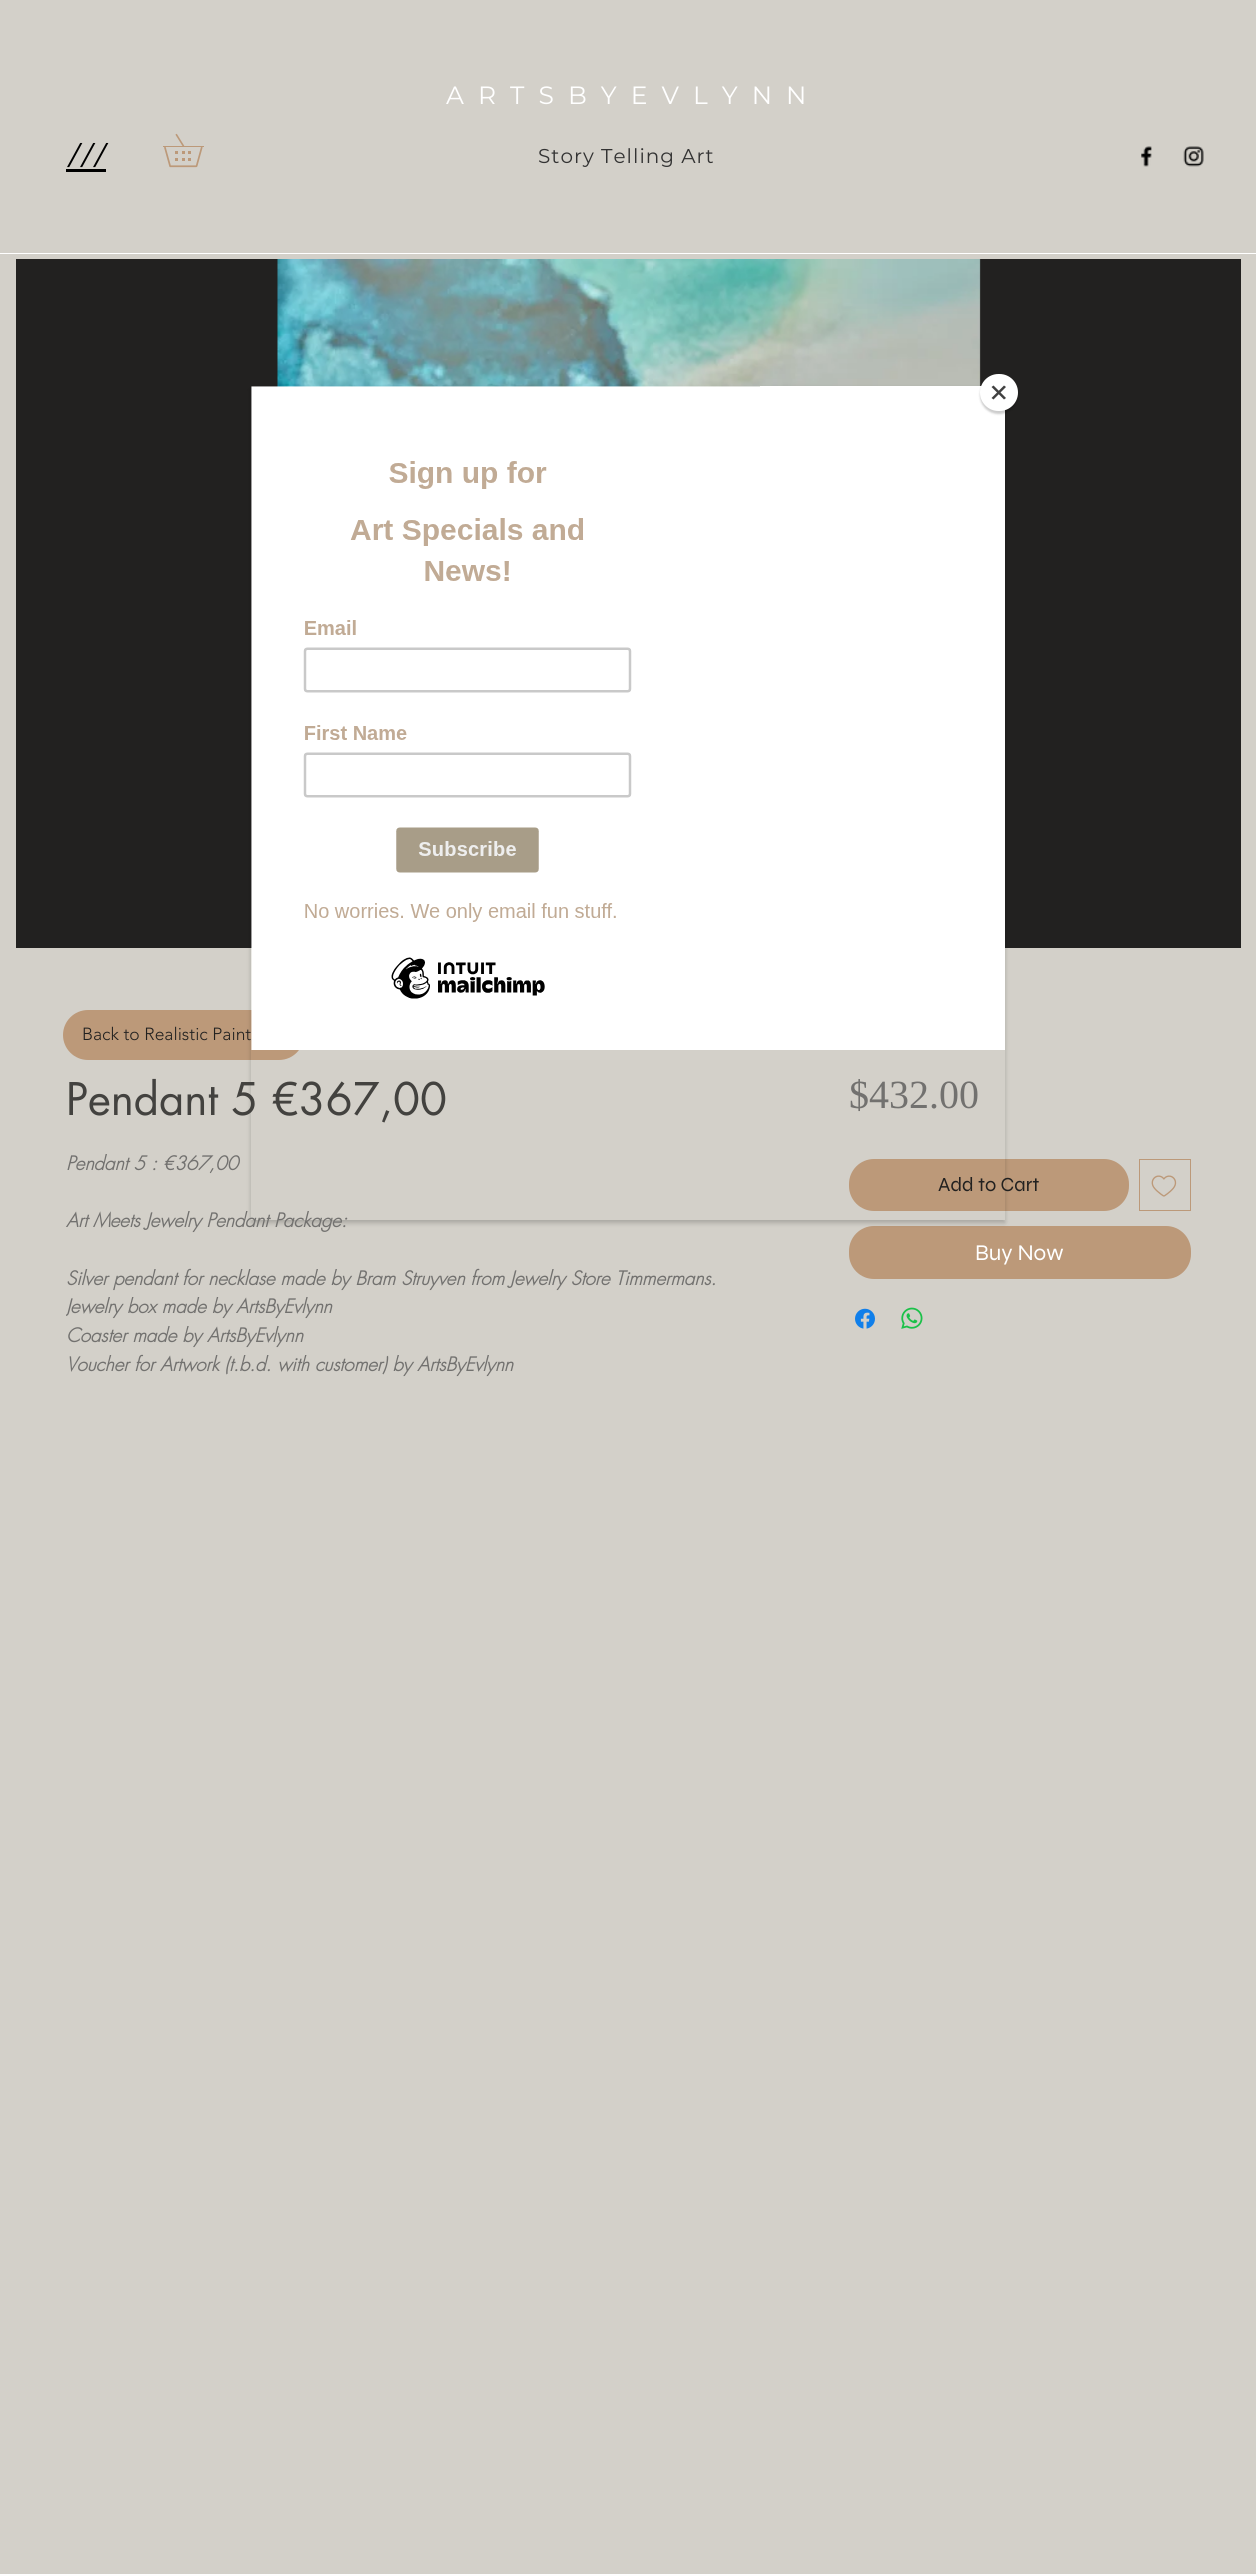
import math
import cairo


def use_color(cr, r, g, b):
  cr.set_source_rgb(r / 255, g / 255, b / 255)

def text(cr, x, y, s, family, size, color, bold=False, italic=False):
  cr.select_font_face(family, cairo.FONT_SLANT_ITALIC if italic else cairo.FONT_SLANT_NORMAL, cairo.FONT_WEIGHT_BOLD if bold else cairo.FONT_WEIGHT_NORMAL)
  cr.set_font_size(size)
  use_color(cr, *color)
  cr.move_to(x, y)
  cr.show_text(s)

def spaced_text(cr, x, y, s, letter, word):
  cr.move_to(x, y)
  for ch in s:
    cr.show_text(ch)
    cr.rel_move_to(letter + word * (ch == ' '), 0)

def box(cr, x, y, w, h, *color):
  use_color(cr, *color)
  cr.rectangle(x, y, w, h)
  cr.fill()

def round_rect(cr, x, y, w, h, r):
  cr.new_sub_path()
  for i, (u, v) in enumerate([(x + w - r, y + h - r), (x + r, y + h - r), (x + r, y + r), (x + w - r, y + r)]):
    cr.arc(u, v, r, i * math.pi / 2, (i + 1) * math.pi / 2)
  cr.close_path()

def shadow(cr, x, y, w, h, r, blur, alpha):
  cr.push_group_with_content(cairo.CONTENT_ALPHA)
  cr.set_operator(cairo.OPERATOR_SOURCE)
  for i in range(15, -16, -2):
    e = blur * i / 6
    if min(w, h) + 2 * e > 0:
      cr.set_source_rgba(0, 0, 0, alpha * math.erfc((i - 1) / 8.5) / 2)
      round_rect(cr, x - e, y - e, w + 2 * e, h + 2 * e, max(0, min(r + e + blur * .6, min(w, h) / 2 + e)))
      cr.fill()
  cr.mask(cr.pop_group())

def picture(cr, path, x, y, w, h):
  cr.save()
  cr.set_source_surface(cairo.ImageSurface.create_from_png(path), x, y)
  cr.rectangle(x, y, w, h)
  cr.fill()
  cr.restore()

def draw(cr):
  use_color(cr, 211, 208, 201)
  cr.paint()
  box(cr, 66, 169, 40, 3, 0, 0, 0)
  picture(cr, "img_01.png", 163, 133, 41, 35)
  picture(cr, "img_02.png", 1141, 146, 11, 21)
  picture(cr, "img_03.png", 1183, 146, 21, 21)
  box(cr, 0, 253, 1256, 1, 255, 255, 255)
  use_color(cr, 188, 153, 121)
  round_rect(cr, 63, 1010, 241, 50, 25)
  cr.fill()
  box(cr, 16, 259, 1225, 689, 34, 33, 32)
  picture(cr, "img_04.png", 277, 259, 704, 128)
  use_color(cr, 188, 153, 121)
  round_rect(cr, 849, 1159, 280, 52, 25)
  cr.fill()
  cr.rectangle(1139.5, 1159.5, 51, 51)
  cr.set_line_width(1)
  cr.stroke()
  picture(cr, "img_05.png", 1151, 1175, 26, 22)
  round_rect(cr, 849, 1226, 342, 53, 25)
  cr.fill()
  picture(cr, "img_06.png", 855, 1308, 20, 21)
  picture(cr, "img_07.png", 901, 1307, 22, 22)
  cr.save()
  cr.set_fill_rule(cairo.FILL_RULE_EVEN_ODD)
  cr.new_path()
  cr.move_to(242, 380)
  cr.line_to(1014, 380)
  cr.line_to(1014, 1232)
  cr.line_to(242, 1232)
  cr.close_path()
  cr.move_to(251, 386)
  cr.line_to(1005, 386)
  cr.line_to(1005, 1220)
  cr.line_to(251, 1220)
  cr.close_path()
  cr.clip()
  use_color(cr, 0, 0, 0)
  shadow(cr, 251, 389, 754, 834, 0, 2.5, 0.2)
  cr.restore()
  picture(cr, "img_08.png", 251, 386, 754, 664)
  use_color(cr, 0, 0, 0)
  shadow(cr, 980, 376, 38, 38, 19, 1, 0.2)
  use_color(cr, 255, 255, 255)
  round_rect(cr, 980, 374, 38, 37, 18.5)
  cr.fill()
  use_color(cr, 65, 65, 65)
  cr.new_path()
  cr.move_to(1004, 385.5)
  cr.line_to(1006, 387)
  cr.line_to(993.5, 399.5)
  cr.line_to(991.5, 398)
  cr.close_path()
  cr.fill()
  cr.new_path()
  cr.move_to(991.5, 387)
  cr.line_to(993.5, 385.5)
  cr.line_to(1006, 398)
  cr.line_to(1004, 399.5)
  cr.close_path()
  cr.fill()
  cr.select_font_face("Montserrat")
  cr.set_font_size(25)
  use_color(cr, 255, 255, 255)
  spaced_text(cr, 446, 104, "A R T S B Y E V L Y N N", 3.75, 0)
  cr.select_font_face("Caudex")
  cr.set_font_size(32)
  use_color(cr, 0, 0, 0)
  spaced_text(cr, 67, 166, "///", -3, 0)
  cr.select_font_face("Montserrat")
  cr.set_font_size(20)
  use_color(cr, 51, 51, 51)
  spaced_text(cr, 538, 163, "Story Telling Art", 1, 0)
  text(cr, 82, 1040, "Back to Realistic Paint", "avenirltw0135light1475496 Light", 17.5, (34, 33, 32))
  text(cr, 66, 1115, "Pendant 5 €367,00", "futura", 43.75, (67, 66, 63))
  text(cr, 66, 1170, "Pendant 5 : €367,00", "futura", 18.75, (114, 113, 111), bold=True, italic=True)
  text(cr, 66, 1227, "Art Meets Jewelry Pendant Package:", "futura", 18.75, (114, 113, 111), bold=True, italic=True)
  text(cr, 66, 1285, "Silver pendant for necklase made by Bram Struyven from Jewelry Store Timmermans.", "futura", 18.75, (114, 113, 111), bold=True, italic=True)
  cr.save()
  cr.rectangle(66, 1150, 650, 230)
  cr.clip()
  text(cr, 66, 1313, "Jewelry box made by", "futura", 18.75, (114, 113, 111), bold=True, italic=True)
  cr.restore()
  text(cr, 236, 1313, "ArtsByEvlynn", "futura", 18.75, (114, 113, 111), bold=True, italic=True)
  text(cr, 66, 1342, "Coaster made by ArtsByEvlynn", "futura", 18.75, (114, 113, 111), bold=True, italic=True)
  text(cr, 66, 1371, "Voucher for Artwork (t.b.d. with customer) by ArtsByEvlynn", "futura", 18.75, (114, 113, 111), bold=True, italic=True)
  text(cr, 849, 1108, "$432.00", "Liberation Serif", 40, (114, 113, 111))
  text(cr, 938, 1191, "Add to Cart", "Syne", 20, (34, 33, 32))
  text(cr, 975, 1260, "Buy Now", "Syne", 22.5, (255, 255, 255))


surface = cairo.ImageSurface(cairo.FORMAT_RGB24, 1256, 2574)
cr = cairo.Context(surface)
options = cairo.FontOptions()
options.set_hint_metrics(cairo.HINT_METRICS_OFF)
options.set_hint_style(cairo.HINT_STYLE_NONE)
cr.set_font_options(options)
cr.set_miter_limit(4)
draw(cr)
surface.write_to_png("out.png")
